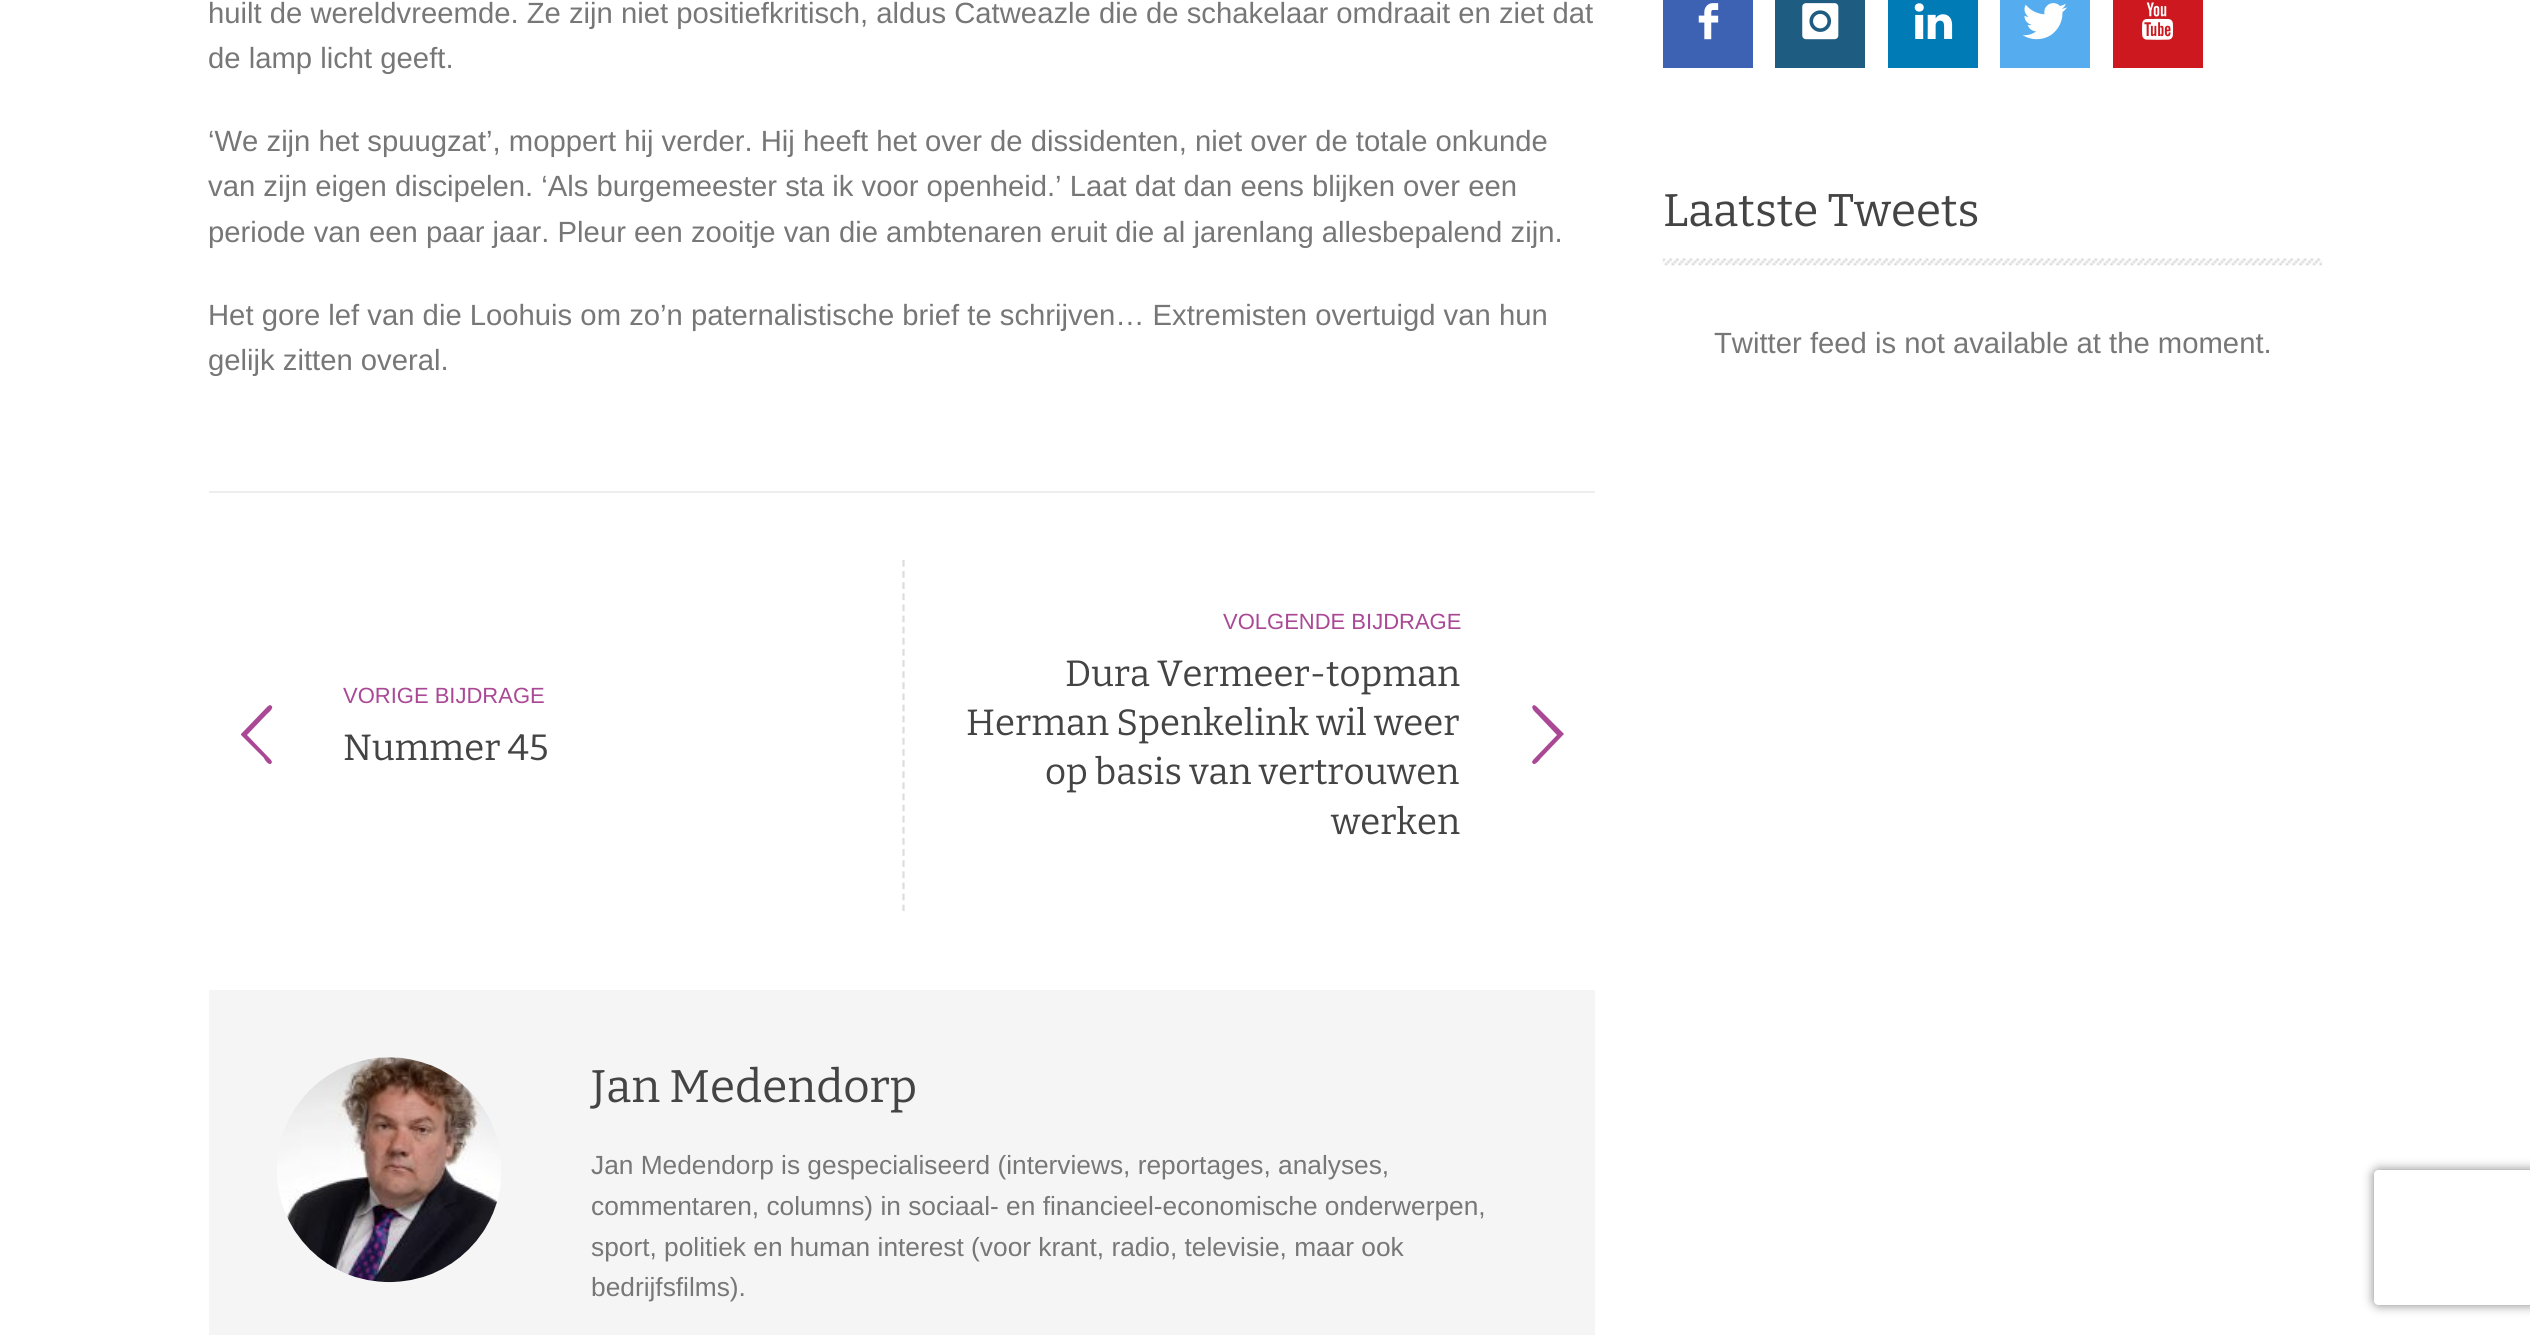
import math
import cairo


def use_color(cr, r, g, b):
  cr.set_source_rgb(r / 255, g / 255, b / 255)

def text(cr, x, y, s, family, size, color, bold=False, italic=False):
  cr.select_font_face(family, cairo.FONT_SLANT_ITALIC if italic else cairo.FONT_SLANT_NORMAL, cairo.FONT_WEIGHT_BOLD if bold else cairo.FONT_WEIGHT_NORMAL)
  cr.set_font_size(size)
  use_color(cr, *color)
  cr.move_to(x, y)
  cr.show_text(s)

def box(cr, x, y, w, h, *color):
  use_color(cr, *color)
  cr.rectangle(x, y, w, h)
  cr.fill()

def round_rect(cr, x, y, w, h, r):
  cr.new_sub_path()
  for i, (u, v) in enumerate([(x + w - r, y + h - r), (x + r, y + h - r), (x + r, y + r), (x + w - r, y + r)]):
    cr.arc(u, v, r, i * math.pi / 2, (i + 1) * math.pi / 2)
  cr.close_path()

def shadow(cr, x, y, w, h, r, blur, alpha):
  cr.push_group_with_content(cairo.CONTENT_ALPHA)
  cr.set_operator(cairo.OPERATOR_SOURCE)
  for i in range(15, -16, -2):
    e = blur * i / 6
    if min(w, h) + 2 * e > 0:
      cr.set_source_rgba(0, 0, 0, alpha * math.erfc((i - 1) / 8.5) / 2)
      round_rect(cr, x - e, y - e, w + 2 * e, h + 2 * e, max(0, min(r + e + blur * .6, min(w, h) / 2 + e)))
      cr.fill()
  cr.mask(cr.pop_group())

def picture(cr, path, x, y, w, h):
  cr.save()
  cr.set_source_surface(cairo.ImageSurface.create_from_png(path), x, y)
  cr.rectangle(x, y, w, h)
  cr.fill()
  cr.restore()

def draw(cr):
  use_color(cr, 255, 255, 255)
  cr.paint()
  box(cr, 209, 491, 1386, 2, 238, 238, 238)
  use_color(cr, 170, 72, 150)
  cr.new_path()
  cr.move_to(271, 760)
  cr.line_to(272, 762)
  cr.curve_to(270, 768, 264, 759, 264, 758)
  cr.line_to(241, 735)
  cr.line_to(241, 734)
  cr.line_to(268, 706)
  cr.line_to(270, 705)
  cr.curve_to(276, 707, 268, 713, 267, 714)
  cr.line_to(247, 735)
  cr.close_path()
  cr.fill()
  cr.new_path()
  cr.move_to(903.5, 560)
  cr.line_to(903.5, 911)
  use_color(cr, 221, 221, 221)
  cr.set_line_width(2.2)
  cr.set_dash([6.75, 4.37])
  cr.stroke()
  use_color(cr, 170, 72, 150)
  cr.new_path()
  cr.move_to(1533, 760)
  cr.line_to(1557, 735)
  cr.line_to(1537, 714)
  cr.curve_to(1536, 713, 1529, 707, 1534, 705)
  cr.line_to(1536, 706)
  cr.line_to(1564, 734)
  cr.line_to(1563, 735)
  cr.line_to(1541, 758)
  cr.curve_to(1540, 759, 1534, 768, 1532, 762)
  cr.close_path()
  cr.fill()
  box(cr, 209, 990, 1386, 345, 245, 245, 245)
  picture(cr, "img_01.png", 277, 1057, 224, 226)
  box(cr, 1663, 0, 90, 68, 61, 98, 179)
  picture(cr, "img_02.png", 1698, 3, 21, 37)
  box(cr, 1775, 0, 90, 68, 30, 93, 129)
  picture(cr, "img_03.png", 1802, 3, 37, 37)
  box(cr, 1888, 0, 90, 68, 0, 123, 182)
  picture(cr, "img_04.png", 1914, 3, 39, 36)
  box(cr, 2000, 0, 90, 68, 85, 172, 238)
  picture(cr, "img_05.png", 2022, 3, 45, 37)
  box(cr, 2113, 0, 90, 68, 204, 24, 30)
  picture(cr, "img_06.png", 2142, 2, 32, 38)
  picture(cr, "img_07.png", 1662, 258, 660, 8)
  cr.save()
  cr.set_fill_rule(cairo.FILL_RULE_EVEN_ODD)
  cr.new_path()
  cr.move_to(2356, 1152)
  cr.line_to(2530, 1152)
  cr.line_to(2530, 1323)
  cr.line_to(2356, 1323)
  cr.close_path()
  cr.move_to(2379, 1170)
  cr.line_to(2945, 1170)
  cr.curve_to(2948, 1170, 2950, 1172, 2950, 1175)
  cr.line_to(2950, 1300)
  cr.curve_to(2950, 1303, 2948, 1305, 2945, 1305)
  cr.line_to(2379, 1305)
  cr.curve_to(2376, 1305, 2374, 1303, 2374, 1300)
  cr.line_to(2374, 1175)
  cr.curve_to(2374, 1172, 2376, 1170, 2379, 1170)
  cr.close_path()
  cr.clip()
  use_color(cr, 128, 128, 128)
  shadow(cr, 2374, 1170, 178, 135, 5, 5.5, 1)
  cr.restore()
  text(cr, 208, 23, "huilt de wereldvreemde. Ze zijn niet positiefkritisch, aldus Catweazle die de schakelaar omdraait en ziet dat", "Liberation Sans", 29.25, (119, 119, 119))
  text(cr, 208, 68, "de lamp licht geeft.", "Liberation Sans", 29.25, (119, 119, 119))
  text(cr, 208, 151, "‘We zijn het spuugzat’, moppert hij verder. Hij heeft het over de dissidenten, niet over de totale onkunde", "Liberation Sans", 29.25, (119, 119, 119))
  text(cr, 208, 196, "van zijn eigen discipelen. ‘Als burgemeester sta ik voor openheid.’ Laat dat dan eens blijken over een", "Liberation Sans", 29.25, (119, 119, 119))
  text(cr, 208, 242, "periode van een paar jaar. Pleur een zooitje van die ambtenaren eruit die al jarenlang allesbepalend zijn.", "Liberation Sans", 29.25, (119, 119, 119))
  text(cr, 208, 325, "Het gore lef van die Loohuis om zo’n paternalistische brief te schrijven… Extremisten overtuigd van hun", "Liberation Sans", 29.25, (119, 119, 119))
  text(cr, 208, 370, "gelijk zitten overal.", "Liberation Sans", 29.25, (119, 119, 119))
  text(cr, 343, 703, "VORIGE BIJDRAGE", "Liberation Sans", 22, (170, 72, 150))
  text(cr, 343, 760, "Nummer 45", "Bitter", 36.5, (68, 68, 68))
  text(cr, 1223, 629, "VOLGENDE BIJDRAGE", "Liberation Sans", 22, (170, 72, 150))
  text(cr, 1065, 686, "Dura Vermeer-topman", "Bitter", 36.5, (68, 68, 68))
  text(cr, 966, 735, "Herman Spenkelink wil weer", "Bitter", 36.5, (68, 68, 68))
  text(cr, 1045, 784, "op basis van vertrouwen", "Bitter", 36.5, (68, 68, 68))
  text(cr, 1331, 834, "werken", "Bitter", 36.5, (68, 68, 68))
  text(cr, 591, 1102, "Jan Medendorp", "Bitter", 45.75, (68, 68, 68))
  text(cr, 591, 1174, "Jan Medendorp is gespecialiseerd (interviews, reportages, analyses,", "Liberation Sans", 26.3, (119, 119, 119))
  text(cr, 591, 1215, "commentaren, columns) in sociaal- en financieel-economische onderwerpen,", "Liberation Sans", 26.3, (119, 119, 119))
  text(cr, 591, 1256, "sport, politiek en human interest (voor krant, radio, televisie, maar ook", "Liberation Sans", 26.3, (119, 119, 119))
  text(cr, 591, 1296, "bedrijfsfilms).", "Liberation Sans", 26.3, (119, 119, 119))
  text(cr, 1663, 226, "Laatste Tweets", "Bitter", 45.75, (68, 68, 68))
  text(cr, 1714, 353, "Twitter feed is not available at the moment.", "Liberation Sans", 29.25, (119, 119, 119))


surface = cairo.ImageSurface(cairo.FORMAT_RGB24, 2530, 1335)
cr = cairo.Context(surface)
options = cairo.FontOptions()
options.set_hint_metrics(cairo.HINT_METRICS_OFF)
options.set_hint_style(cairo.HINT_STYLE_NONE)
cr.set_font_options(options)
cr.set_miter_limit(4)
draw(cr)
surface.write_to_png("out.png")
